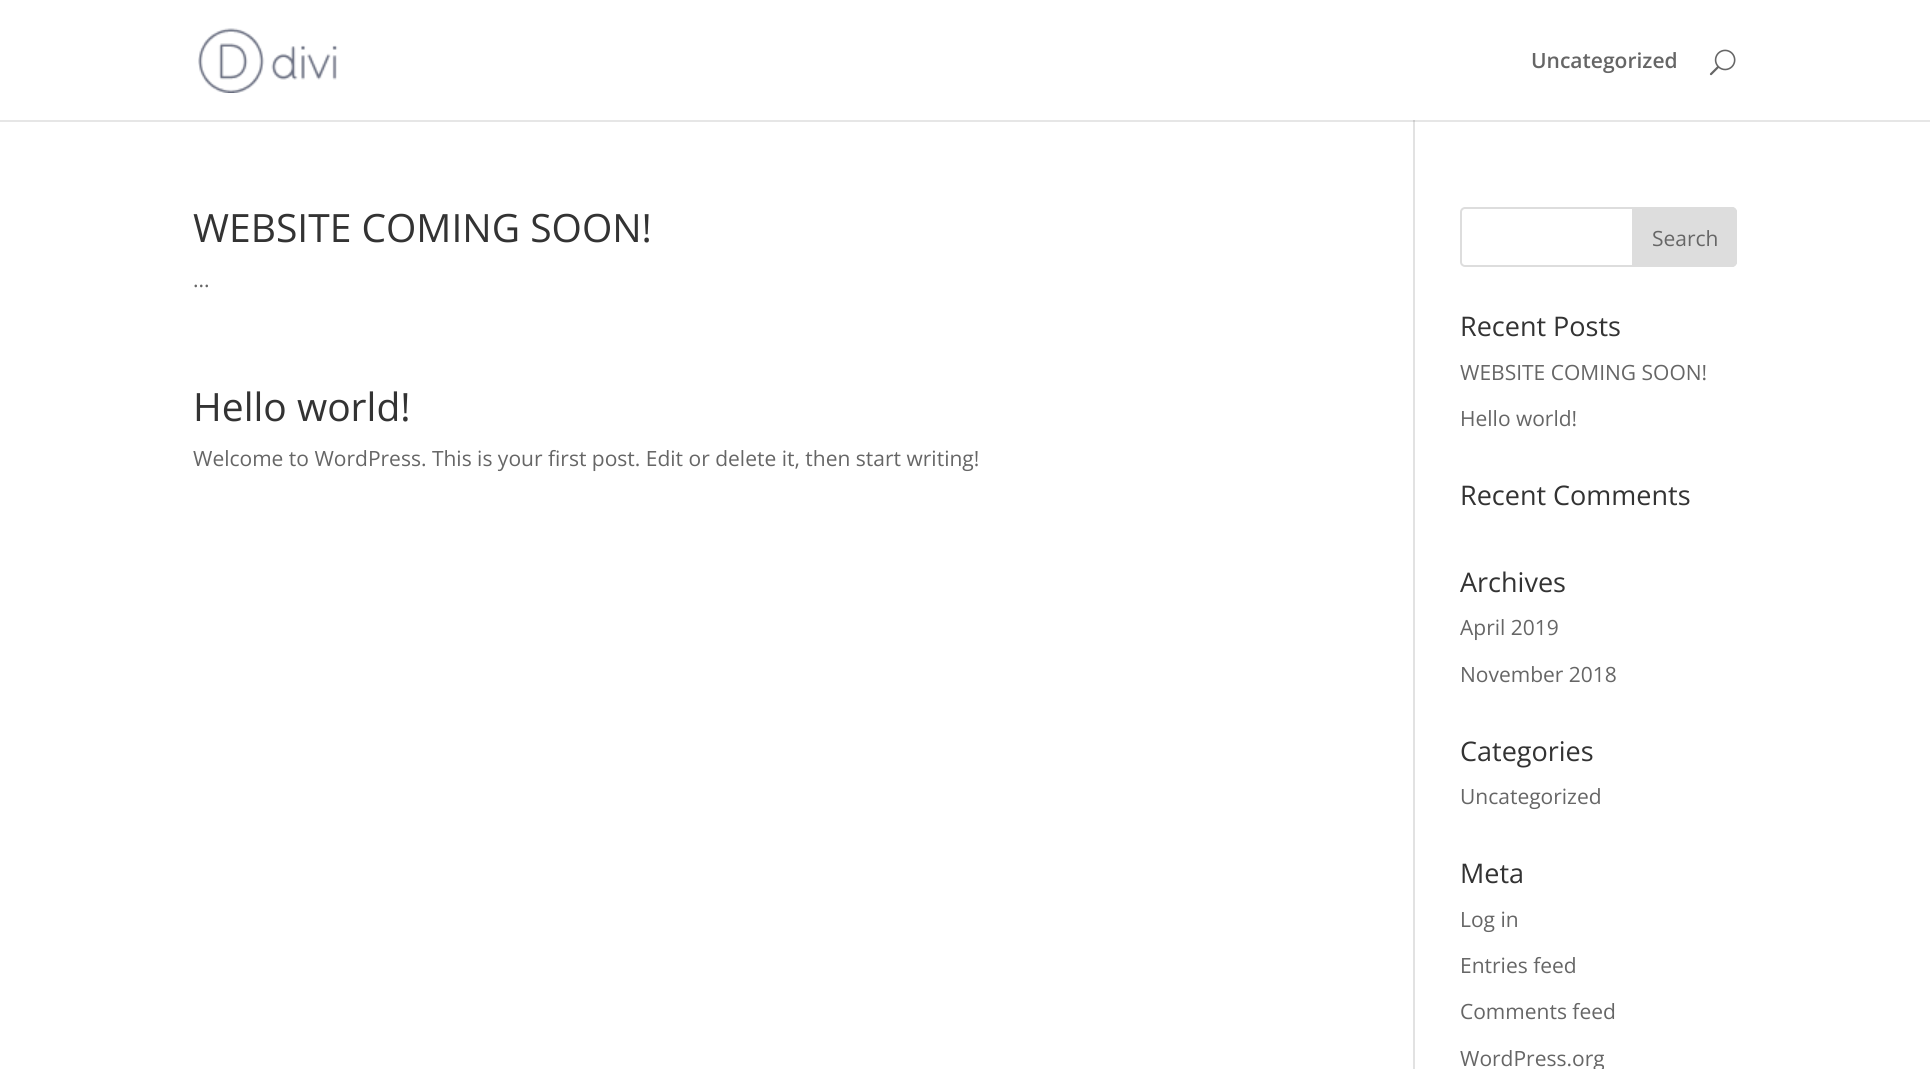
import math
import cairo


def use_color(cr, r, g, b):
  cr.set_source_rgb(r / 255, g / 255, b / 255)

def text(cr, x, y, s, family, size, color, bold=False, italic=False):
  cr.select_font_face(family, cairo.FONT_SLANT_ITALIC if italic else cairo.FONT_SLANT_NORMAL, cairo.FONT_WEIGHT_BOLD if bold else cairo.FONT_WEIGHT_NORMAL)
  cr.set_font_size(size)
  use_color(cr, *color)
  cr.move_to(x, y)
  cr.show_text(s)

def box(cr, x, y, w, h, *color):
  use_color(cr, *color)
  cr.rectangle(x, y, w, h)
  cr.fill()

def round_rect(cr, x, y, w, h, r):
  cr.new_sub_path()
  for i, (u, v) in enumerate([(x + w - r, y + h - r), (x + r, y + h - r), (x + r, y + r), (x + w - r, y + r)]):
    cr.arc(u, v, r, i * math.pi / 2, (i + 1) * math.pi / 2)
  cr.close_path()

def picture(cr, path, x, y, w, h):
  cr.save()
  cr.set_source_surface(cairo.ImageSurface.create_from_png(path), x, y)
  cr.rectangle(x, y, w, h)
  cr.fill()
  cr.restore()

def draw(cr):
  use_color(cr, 255, 255, 255)
  cr.paint()
  box(cr, 1413, 120, 2, 949, 226, 226, 226)
  cr.set_source_rgba(0, 0, 0, 0.1)
  cr.new_path()
  cr.move_to(0, 120)
  cr.line_to(0, 122)
  cr.line_to(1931, 122)
  cr.line_to(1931, 2)
  cr.line_to(1930, 2)
  cr.line_to(1930, 120)
  cr.close_path()
  cr.fill()
  picture(cr, "img_01.png", 198, 28, 140, 65)
  picture(cr, "img_02.png", 1709, 49, 27, 27)
  round_rect(cr, 1461, 208, 275, 58, 4)
  use_color(cr, 221, 221, 221)
  cr.stroke()
  cr.new_path()
  cr.move_to(1633, 208)
  cr.line_to(1732, 208)
  cr.curve_to(1734, 208, 1736, 210, 1736, 212)
  cr.line_to(1736, 262)
  cr.curve_to(1736, 264, 1734, 266, 1732, 266)
  cr.line_to(1633, 266)
  cr.close_path()
  cr.fill_preserve()
  cr.stroke()
  text(cr, 1531, 68, "Uncategorized", "Open Sans SemiBold", 21, (102, 102, 102))
  text(cr, 193, 242, "WEBSITE COMING SOON!", "Open Sans", 39, (51, 51, 51))
  text(cr, 193, 287, "...", "Open Sans", 21, (102, 102, 102))
  text(cr, 193, 421, "Hello world!", "Open Sans", 39, (51, 51, 51))
  text(cr, 193, 466, "Welcome to WordPress. This is your first post. Edit or delete it, then start writing!", "Open Sans", 21, (102, 102, 102))
  text(cr, 1652, 246, "Search", "Open Sans", 21, (102, 102, 102))
  text(cr, 1460, 336, "Recent Posts", "Open Sans", 27, (51, 51, 51))
  text(cr, 1460, 380, "WEBSITE COMING SOON!", "Open Sans", 21, (102, 102, 102))
  text(cr, 1460, 426, "Hello world!", "Open Sans", 21, (102, 102, 102))
  text(cr, 1460, 505, "Recent Comments", "Open Sans", 27, (51, 51, 51))
  text(cr, 1460, 592, "Archives", "Open Sans", 27, (51, 51, 51))
  text(cr, 1460, 635, "April 2019", "Open Sans", 21, (102, 102, 102))
  text(cr, 1460, 682, "November 2018", "Open Sans", 21, (102, 102, 102))
  text(cr, 1460, 761, "Categories", "Open Sans", 27, (51, 51, 51))
  text(cr, 1460, 804, "Uncategorized", "Open Sans", 21, (102, 102, 102))
  text(cr, 1460, 883, "Meta", "Open Sans", 27, (51, 51, 51))
  text(cr, 1460, 927, "Log in", "Open Sans", 21, (102, 102, 102))
  text(cr, 1460, 973, "Entries feed", "Open Sans", 21, (102, 102, 102))
  text(cr, 1460, 1019, "Comments feed", "Open Sans", 21, (102, 102, 102))
  text(cr, 1460, 1066, "WordPress.org", "Open Sans", 21, (102, 102, 102))


surface = cairo.ImageSurface(cairo.FORMAT_RGB24, 1930, 1069)
cr = cairo.Context(surface)
options = cairo.FontOptions()
options.set_hint_metrics(cairo.HINT_METRICS_OFF)
options.set_hint_style(cairo.HINT_STYLE_NONE)
cr.set_font_options(options)
cr.set_miter_limit(4)
draw(cr)
surface.write_to_png("out.png")
